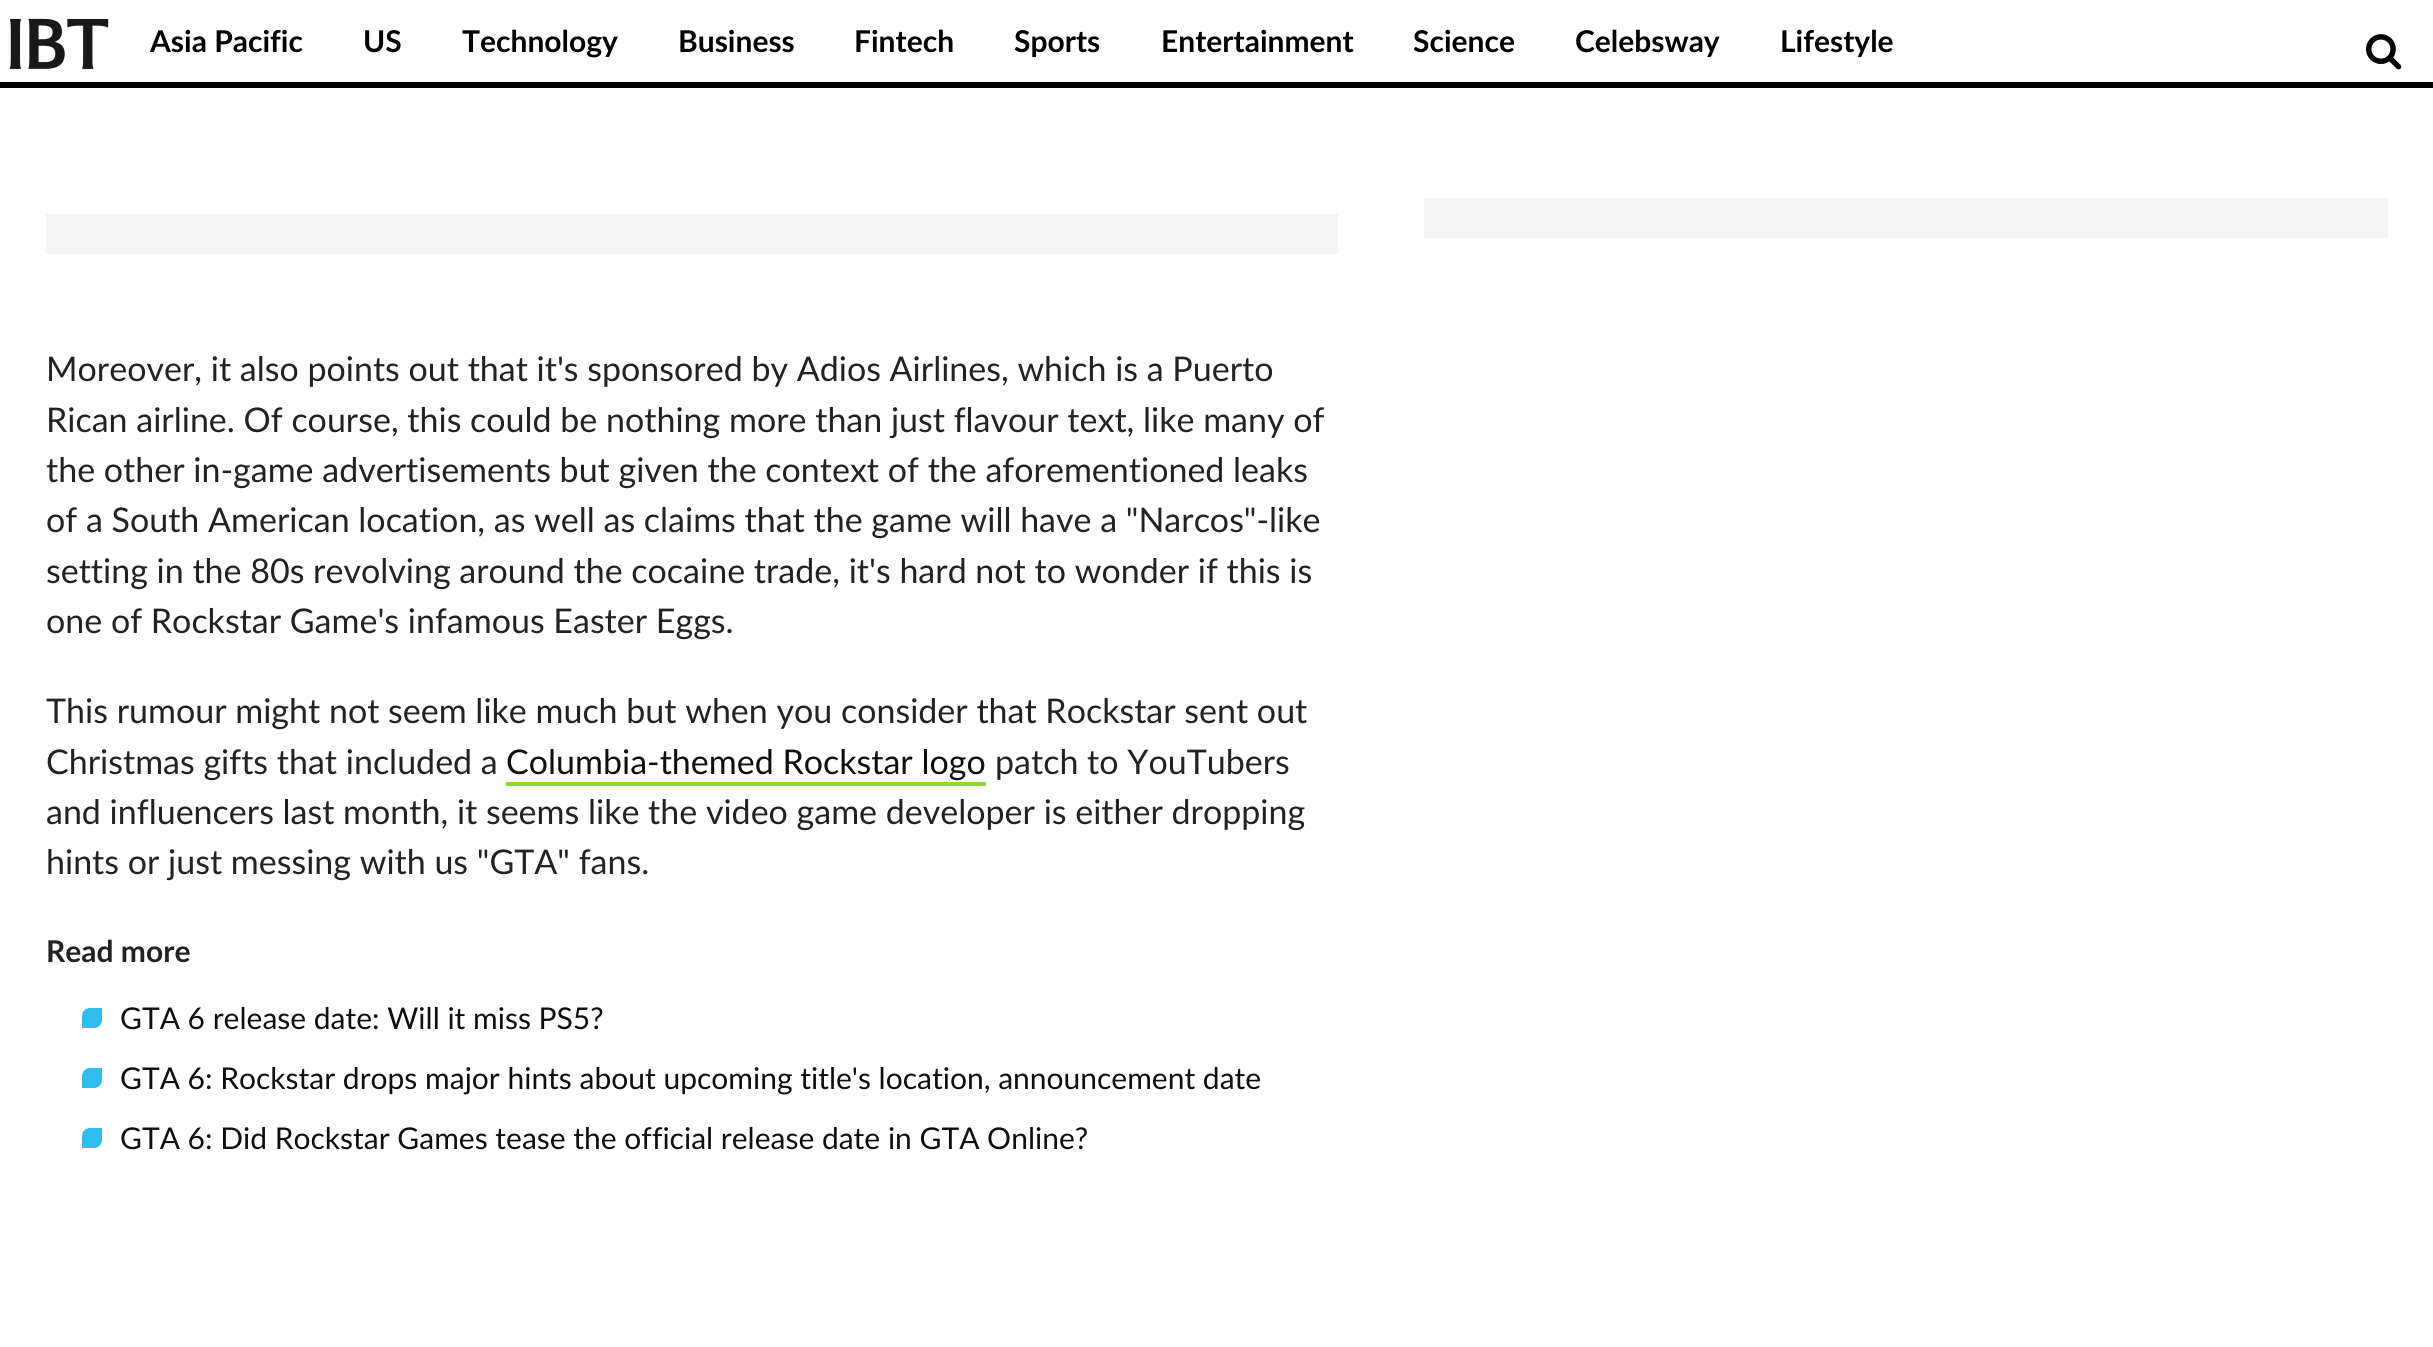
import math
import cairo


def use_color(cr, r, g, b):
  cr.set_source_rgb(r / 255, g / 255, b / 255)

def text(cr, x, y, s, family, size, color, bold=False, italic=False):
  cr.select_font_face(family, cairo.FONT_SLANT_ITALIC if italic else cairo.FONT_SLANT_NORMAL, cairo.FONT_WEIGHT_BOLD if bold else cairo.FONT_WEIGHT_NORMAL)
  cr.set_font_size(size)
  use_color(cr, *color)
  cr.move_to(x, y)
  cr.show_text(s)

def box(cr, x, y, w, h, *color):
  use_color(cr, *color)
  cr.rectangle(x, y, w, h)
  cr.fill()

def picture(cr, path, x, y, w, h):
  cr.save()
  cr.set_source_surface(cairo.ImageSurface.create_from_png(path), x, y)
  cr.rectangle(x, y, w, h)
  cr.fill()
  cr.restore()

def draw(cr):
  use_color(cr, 255, 255, 255)
  cr.paint()
  box(cr, 0, 82, 2433, 6, 0, 0, 0)
  picture(cr, "img_01.png", 9, 18, 100, 51)
  picture(cr, "img_02.png", 2366, 34, 36, 36)
  box(cr, 1424, 198, 964, 40, 245, 245, 245)
  box(cr, 46, 214, 1292, 40, 245, 245, 245)
  box(cr, 506, 782, 480, 4, 138, 219, 43)
  use_color(cr, 48, 188, 237)
  cr.new_path()
  cr.move_to(90, 1008)
  cr.line_to(102, 1008)
  cr.line_to(102, 1020)
  cr.curve_to(102, 1024.5, 98.5, 1028, 94, 1028)
  cr.line_to(82, 1028)
  cr.line_to(82, 1016)
  cr.curve_to(82, 1011.5, 85.5, 1008, 90, 1008)
  cr.close_path()
  cr.fill()
  cr.new_path()
  cr.move_to(90, 1068)
  cr.line_to(102, 1068)
  cr.line_to(102, 1080)
  cr.curve_to(102, 1084.5, 98.5, 1088, 94, 1088)
  cr.line_to(82, 1088)
  cr.line_to(82, 1076)
  cr.curve_to(82, 1071.5, 85.5, 1068, 90, 1068)
  cr.close_path()
  cr.fill()
  cr.new_path()
  cr.move_to(90, 1128)
  cr.line_to(102, 1128)
  cr.line_to(102, 1140)
  cr.curve_to(102, 1144.5, 98.5, 1148, 94, 1148)
  cr.line_to(82, 1148)
  cr.line_to(82, 1136)
  cr.curve_to(82, 1131.5, 85.5, 1128, 90, 1128)
  cr.close_path()
  cr.fill()
  text(cr, 150, 52, "Asia Pacific", "Lato", 30, (0, 0, 0), bold=True)
  text(cr, 363, 52, "US", "Lato", 30, (0, 0, 0), bold=True)
  text(cr, 462, 52, "Technology", "Lato", 30, (0, 0, 0), bold=True)
  text(cr, 678, 52, "Business", "Lato", 30, (0, 0, 0), bold=True)
  text(cr, 854, 52, "Fintech", "Lato", 30, (0, 0, 0), bold=True)
  text(cr, 1014, 52, "Sports", "Lato", 30, (0, 0, 0), bold=True)
  text(cr, 1161, 52, "Entertainment", "Lato", 30, (0, 0, 0), bold=True)
  text(cr, 1413, 52, "Science", "Lato", 30, (0, 0, 0), bold=True)
  text(cr, 1575, 52, "Celebsway", "Lato", 30, (0, 0, 0), bold=True)
  text(cr, 1780, 52, "Lifestyle", "Lato", 30, (0, 0, 0), bold=True)
  text(cr, 46, 381, "Moreover, it also points out that it's sponsored by Adios Airlines, which is a Puerto", "Lato", 34, (34, 34, 34))
  text(cr, 46, 432, "Rican airline. Of course, this could be nothing more than just flavour text, like many of", "Lato", 34, (34, 34, 34))
  text(cr, 46, 482, "the other in-game advertisements but given the context of the aforementioned leaks", "Lato", 34, (34, 34, 34))
  text(cr, 46, 532, "of a South American location, as well as claims that the game will have a \"Narcos\"-like", "Lato", 34, (34, 34, 34))
  text(cr, 46, 583, "setting in the 80s revolving around the cocaine trade, it's hard not to wonder if this is", "Lato", 34, (34, 34, 34))
  text(cr, 46, 633, "one of Rockstar Game's infamous Easter Eggs.", "Lato", 34, (34, 34, 34))
  text(cr, 46, 723, "This rumour might not seem like much but when you consider that Rockstar sent out", "Lato", 34, (34, 34, 34))
  text(cr, 46, 774, "Christmas gifts that included a", "Lato", 34, (34, 34, 34))
  text(cr, 506, 774, "Columbia-themed Rockstar logo", "Lato", 34, (14, 14, 14))
  text(cr, 995, 774, "patch to YouTubers", "Lato", 34, (34, 34, 34))
  text(cr, 46, 824, "and influencers last month, it seems like the video game developer is either dropping", "Lato", 34, (34, 34, 34))
  text(cr, 46, 874, "hints or just messing with us \"GTA\" fans.", "Lato", 34, (34, 34, 34))
  text(cr, 46, 962, "Read more", "Lato", 30, (34, 34, 34), bold=True)
  text(cr, 120, 1029, "GTA 6 release date: Will it miss PS5?", "Lato", 30, (14, 14, 14))
  text(cr, 120, 1089, "GTA 6: Rockstar drops major hints about upcoming title's location, announcement date", "Lato", 30, (14, 14, 14))
  text(cr, 120, 1149, "GTA 6: Did Rockstar Games tease the official release date in GTA Online?", "Lato", 30, (14, 14, 14))


surface = cairo.ImageSurface(cairo.FORMAT_RGB24, 2433, 1347)
cr = cairo.Context(surface)
options = cairo.FontOptions()
options.set_hint_metrics(cairo.HINT_METRICS_OFF)
options.set_hint_style(cairo.HINT_STYLE_NONE)
cr.set_font_options(options)
cr.set_miter_limit(4)
draw(cr)
surface.write_to_png("out.png")
